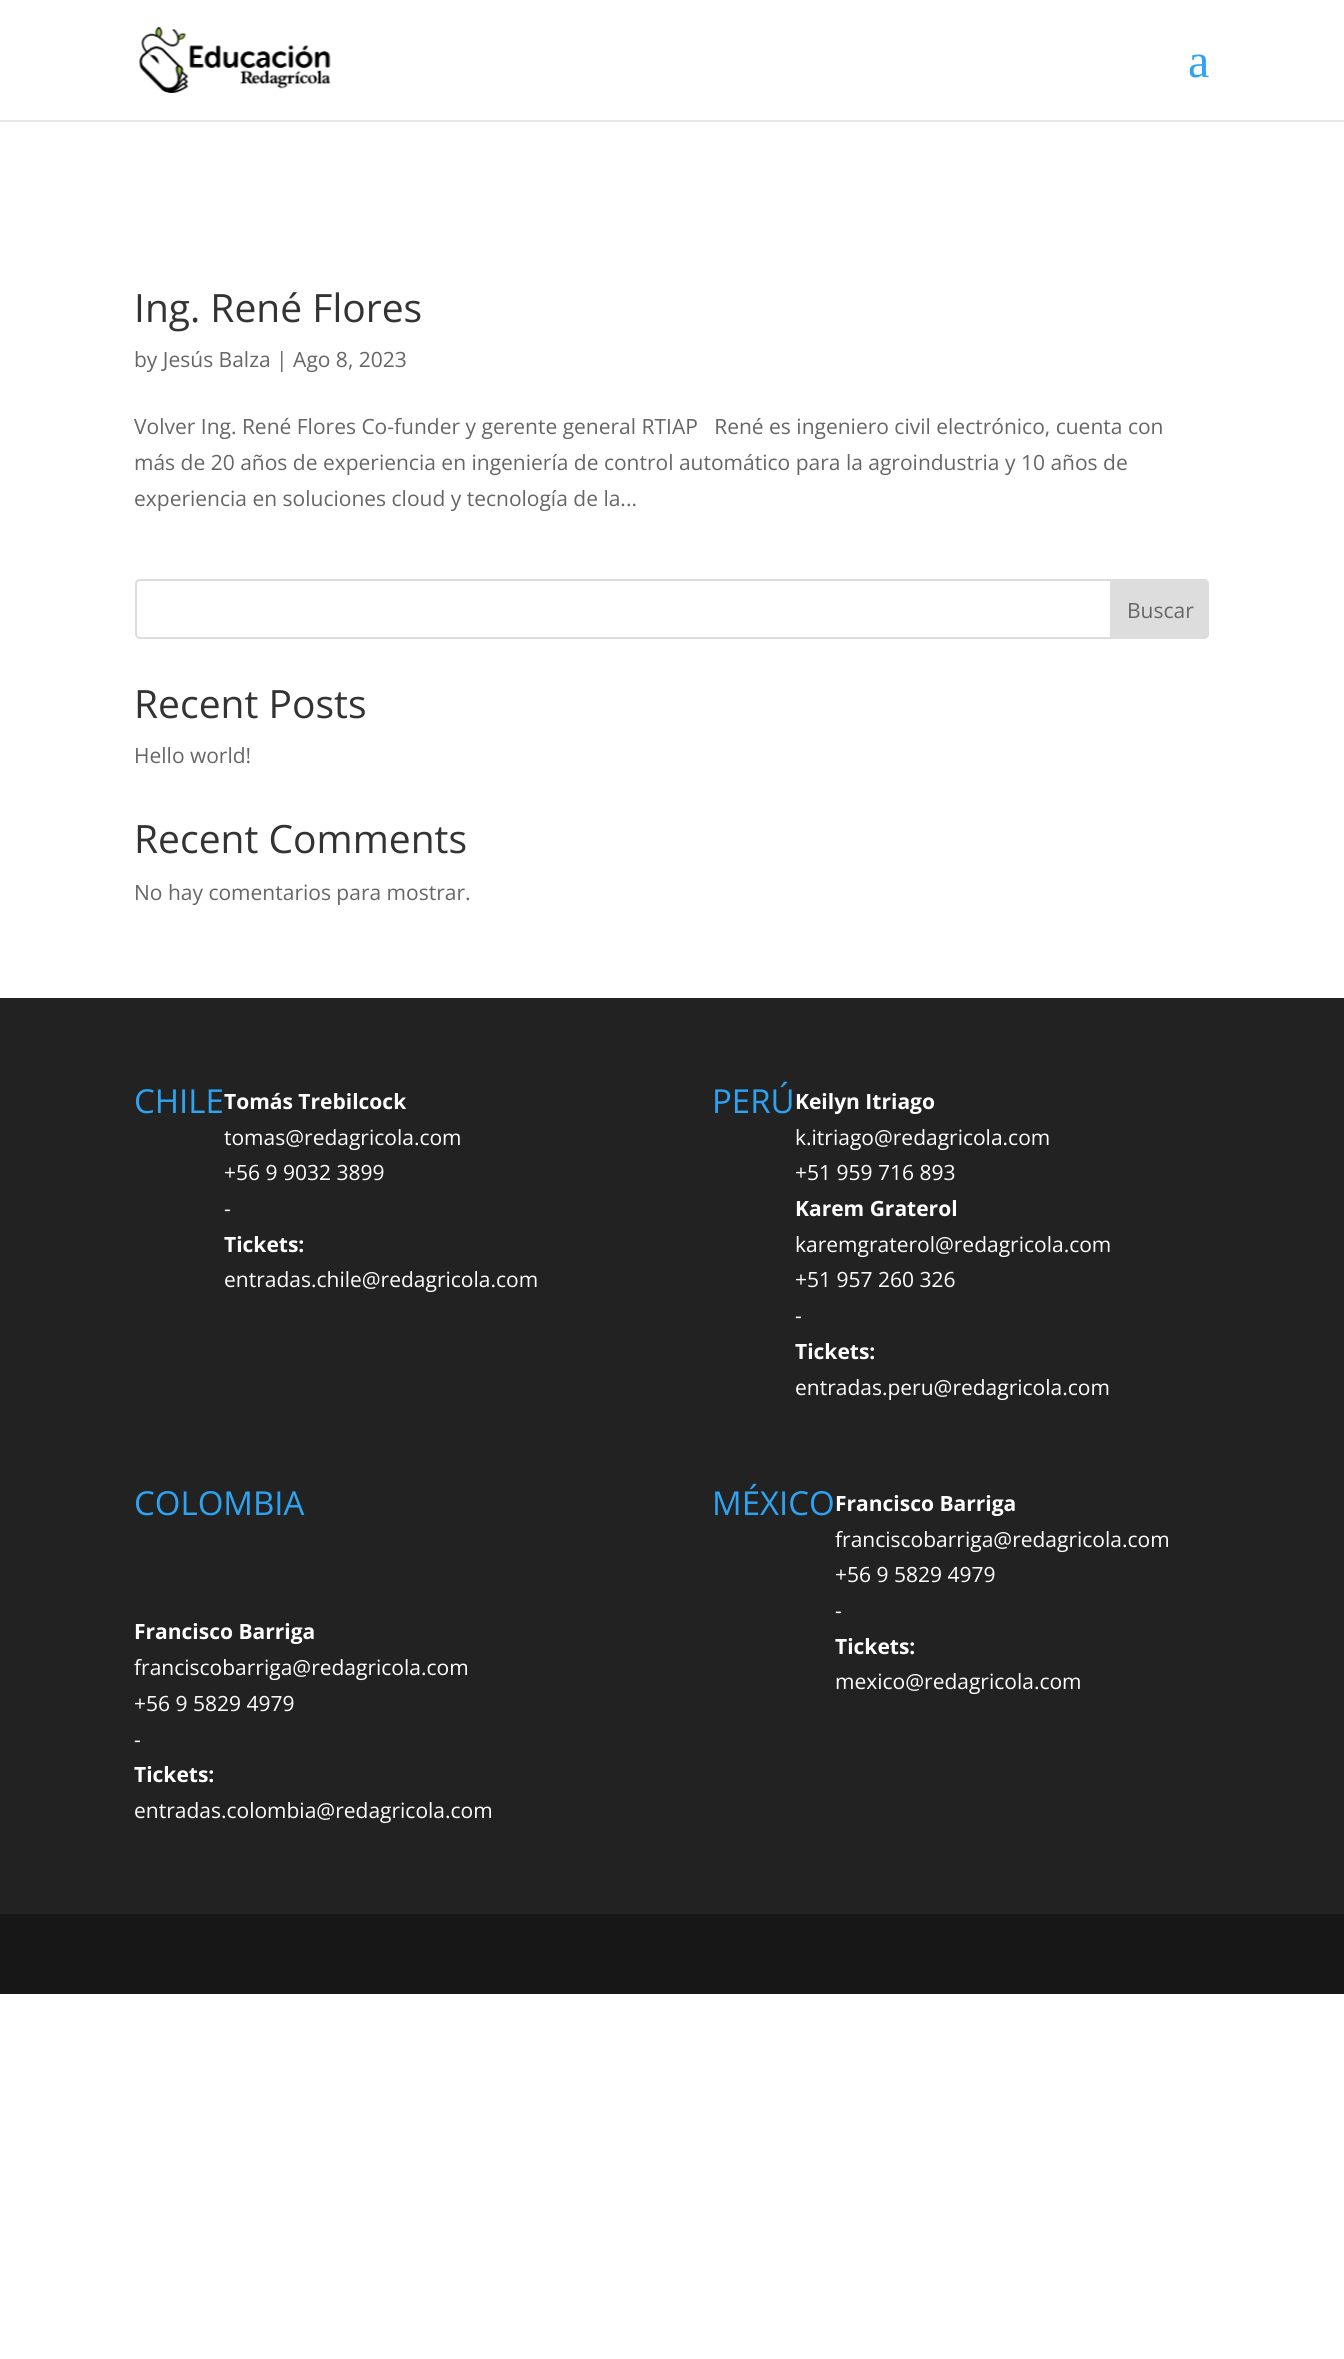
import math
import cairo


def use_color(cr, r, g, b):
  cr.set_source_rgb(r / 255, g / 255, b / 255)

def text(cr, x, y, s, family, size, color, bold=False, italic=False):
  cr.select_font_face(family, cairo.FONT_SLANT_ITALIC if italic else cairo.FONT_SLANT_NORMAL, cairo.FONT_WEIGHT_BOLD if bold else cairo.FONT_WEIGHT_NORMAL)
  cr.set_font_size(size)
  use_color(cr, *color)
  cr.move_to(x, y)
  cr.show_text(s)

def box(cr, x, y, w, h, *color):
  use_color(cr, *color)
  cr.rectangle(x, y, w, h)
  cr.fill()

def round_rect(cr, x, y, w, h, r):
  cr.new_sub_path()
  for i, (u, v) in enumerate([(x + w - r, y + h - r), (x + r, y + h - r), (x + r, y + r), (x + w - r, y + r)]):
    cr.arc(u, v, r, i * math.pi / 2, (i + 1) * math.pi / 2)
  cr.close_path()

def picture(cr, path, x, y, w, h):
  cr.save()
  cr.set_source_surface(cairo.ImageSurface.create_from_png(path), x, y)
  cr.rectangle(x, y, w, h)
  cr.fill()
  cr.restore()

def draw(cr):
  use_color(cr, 255, 255, 255)
  cr.paint()
  box(cr, 0, 120, 1344, 2, 230, 230, 230)
  picture(cr, "img_01.png", 139, 27, 192, 66)
  round_rect(cr, 136, 580, 1072, 58, 4)
  use_color(cr, 221, 221, 221)
  cr.stroke()
  cr.new_path()
  cr.move_to(1111, 580)
  cr.line_to(1204, 580)
  cr.curve_to(1206, 580, 1208, 582, 1208, 584)
  cr.line_to(1208, 634)
  cr.curve_to(1208, 636, 1206, 638, 1204, 638)
  cr.line_to(1111, 638)
  cr.close_path()
  cr.fill_preserve()
  cr.stroke()
  box(cr, 0, 998, 1344, 916, 34, 34, 34)
  box(cr, 0, 1914, 1344, 80, 23, 23, 23)
  text(cr, 1188, 77, "a", "Liberation Serif", 48, (46, 163, 242))
  text(cr, 134, 322, "Ing. René Flores", "Open Sans", 39, (51, 51, 51))
  text(cr, 134, 367, "by Jesús Balza | Ago 8, 2023", "Open Sans", 21, (102, 102, 102))
  text(cr, 134, 434, "Volver Ing. René Flores Co-funder y gerente general RTIAP   René es ingeniero civil electrónico, cuenta con", "Open Sans", 21, (102, 102, 102))
  text(cr, 134, 470, "más de 20 años de experiencia en ingeniería de control automático para la agroindustria y 10 años de", "Open Sans", 21, (102, 102, 102))
  text(cr, 134, 506, "experiencia en soluciones cloud y tecnología de la...", "Open Sans", 21, (102, 102, 102))
  text(cr, 1127, 618, "Buscar", "Open Sans", 21, (102, 102, 102))
  text(cr, 134, 718, "Recent Posts", "Open Sans", 39, (51, 51, 51))
  text(cr, 134, 763, "Hello world!", "Open Sans", 21, (102, 102, 102))
  text(cr, 134, 853, "Recent Comments", "Open Sans", 39, (51, 51, 51))
  text(cr, 134, 900, "No hay comentarios para mostrar.", "Open Sans", 21, (102, 102, 102))
  text(cr, 134, 1113, "CHILE", "Open Sans", 33, (46, 163, 242))
  text(cr, 224, 1109, "Tomás Trebilcock", "Open Sans", 21, (255, 255, 255), bold=True)
  text(cr, 224, 1145, "tomas@redagricola.com", "Open Sans", 21, (255, 255, 255))
  text(cr, 224, 1180, "+56 9 9032 3899", "Open Sans", 21, (255, 255, 255))
  text(cr, 224, 1216, "-", "Open Sans", 21, (255, 255, 255))
  text(cr, 224, 1252, "Tickets:", "Open Sans", 21, (255, 255, 255), bold=True)
  text(cr, 224, 1287, "entradas.chile@redagricola.com", "Open Sans", 21, (255, 255, 255))
  text(cr, 712, 1113, "PERÚ", "Open Sans", 33, (46, 163, 242))
  text(cr, 795, 1109, "Keilyn Itriago", "Open Sans", 21, (255, 255, 255), bold=True)
  text(cr, 795, 1145, "k.itriago@redagricola.com", "Open Sans", 21, (255, 255, 255))
  text(cr, 795, 1180, "+51 959 716 893", "Open Sans", 21, (255, 255, 255))
  text(cr, 795, 1216, "Karem Graterol", "Open Sans", 21, (255, 255, 255), bold=True)
  text(cr, 795, 1252, "karemgraterol@redagricola.com", "Open Sans", 21, (255, 255, 255))
  text(cr, 795, 1287, "+51 957 260 326", "Open Sans", 21, (255, 255, 255))
  text(cr, 795, 1323, "-", "Open Sans", 21, (255, 255, 255))
  text(cr, 795, 1359, "Tickets:", "Open Sans", 21, (255, 255, 255), bold=True)
  text(cr, 795, 1395, "entradas.peru@redagricola.com", "Open Sans", 21, (255, 255, 255))
  text(cr, 134, 1515, "COLOMBIA", "Open Sans", 33, (46, 163, 242))
  text(cr, 134, 1639, "Francisco Barriga", "Open Sans", 21, (255, 255, 255), bold=True)
  text(cr, 134, 1675, "franciscobarriga@redagricola.com", "Open Sans", 21, (255, 255, 255))
  text(cr, 134, 1711, "+56 9 5829 4979", "Open Sans", 21, (255, 255, 255))
  text(cr, 134, 1747, "-", "Open Sans", 21, (255, 255, 255))
  text(cr, 134, 1782, "Tickets:", "Open Sans", 21, (255, 255, 255), bold=True)
  text(cr, 134, 1818, "entradas.colombia@redagricola.com", "Open Sans", 21, (255, 255, 255))
  text(cr, 712, 1515, "MÉXICO", "Open Sans", 33, (46, 163, 242))
  text(cr, 835, 1511, "Francisco Barriga", "Open Sans", 21, (255, 255, 255), bold=True)
  text(cr, 835, 1547, "franciscobarriga@redagricola.com", "Open Sans", 21, (255, 255, 255))
  text(cr, 835, 1582, "+56 9 5829 4979", "Open Sans", 21, (255, 255, 255))
  text(cr, 835, 1618, "-", "Open Sans", 21, (255, 255, 255))
  text(cr, 835, 1654, "Tickets:", "Open Sans", 21, (255, 255, 255), bold=True)
  text(cr, 835, 1689, "mexico@redagricola.com", "Open Sans", 21, (255, 255, 255))


surface = cairo.ImageSurface(cairo.FORMAT_RGB24, 1344, 2359)
cr = cairo.Context(surface)
options = cairo.FontOptions()
options.set_hint_metrics(cairo.HINT_METRICS_OFF)
options.set_hint_style(cairo.HINT_STYLE_NONE)
cr.set_font_options(options)
cr.set_miter_limit(4)
draw(cr)
surface.write_to_png("out.png")
